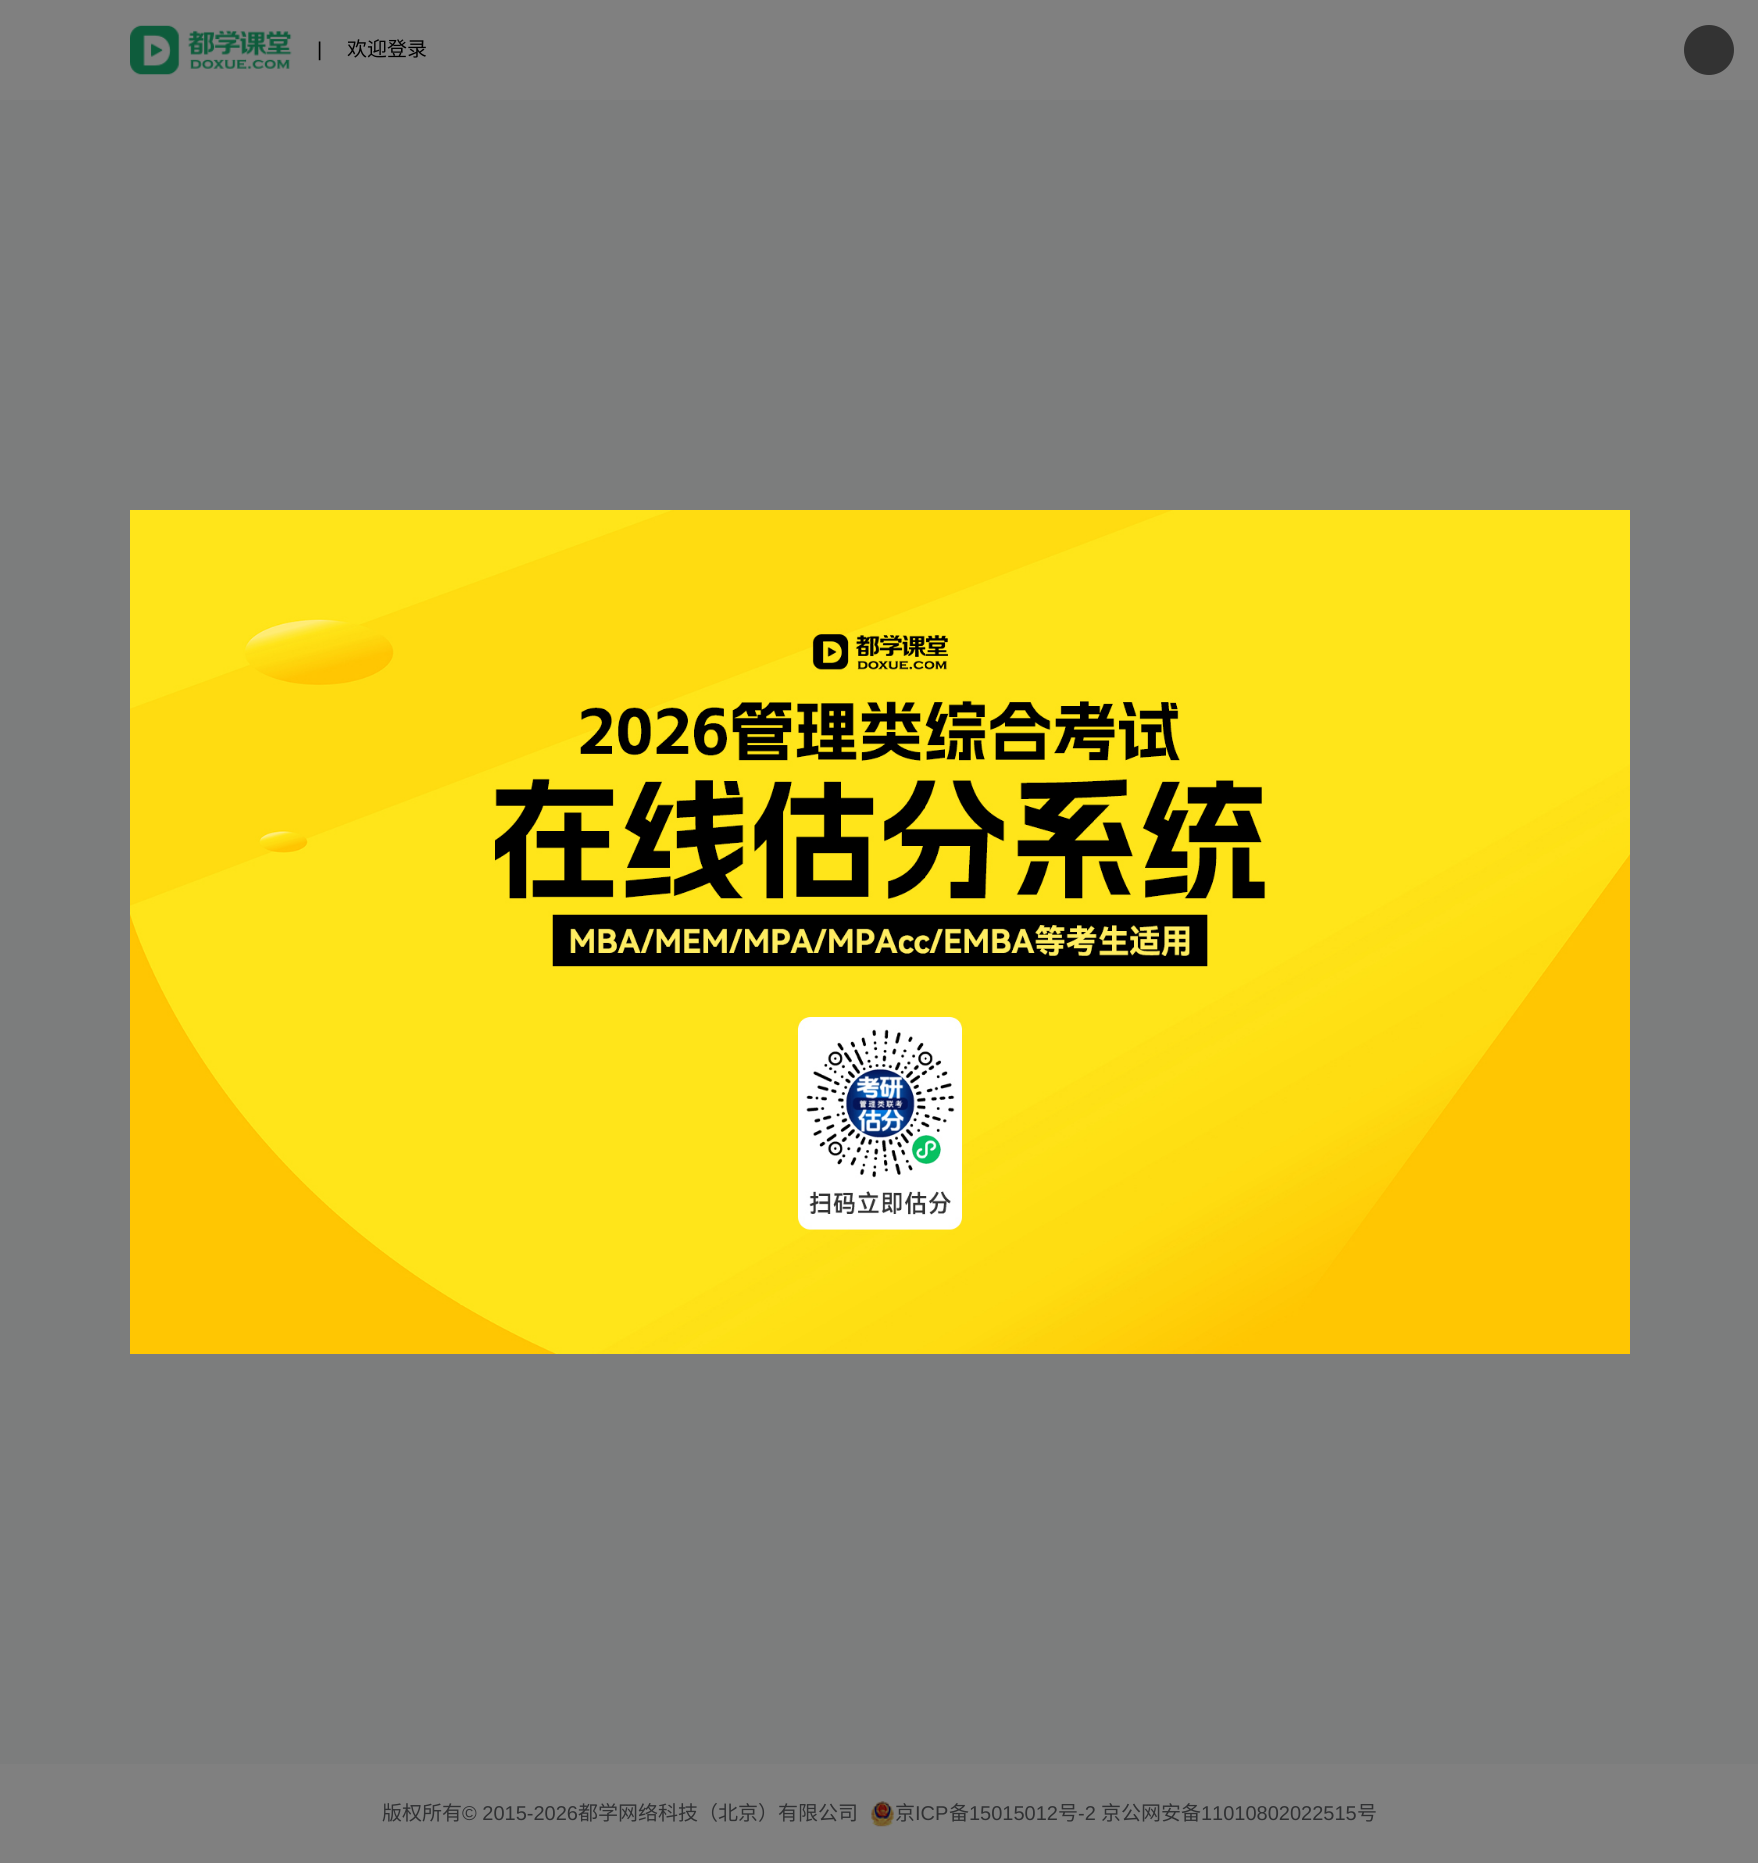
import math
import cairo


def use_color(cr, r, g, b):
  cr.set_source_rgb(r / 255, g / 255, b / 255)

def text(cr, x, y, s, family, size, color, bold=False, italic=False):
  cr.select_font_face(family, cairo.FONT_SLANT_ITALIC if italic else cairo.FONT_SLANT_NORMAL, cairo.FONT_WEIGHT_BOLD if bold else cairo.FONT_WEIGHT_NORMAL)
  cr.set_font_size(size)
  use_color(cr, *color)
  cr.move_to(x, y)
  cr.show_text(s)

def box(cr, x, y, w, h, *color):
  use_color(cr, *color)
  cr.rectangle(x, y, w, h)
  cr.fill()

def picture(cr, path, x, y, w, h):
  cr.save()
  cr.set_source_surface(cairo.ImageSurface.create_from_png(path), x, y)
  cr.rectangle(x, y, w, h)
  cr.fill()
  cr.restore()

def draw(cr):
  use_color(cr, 124, 125, 125)
  cr.paint()
  box(cr, 0, 0, 1758, 100, 128, 128, 128)
  use_color(cr, 51, 51, 51)
  cr.arc(1709, 50, 25, 0, 2 * math.pi)
  cr.fill()
  picture(cr, "img_01.png", 130, 510, 1500, 844)
  picture(cr, "img_02.png", 130, 25, 162, 50)
  box(cr, 0, 1764, 1758, 99, 128, 128, 128)
  picture(cr, "img_03.png", 871, 1801, 23, 26)
  text(cr, 317, 56, "|", "Liberation Sans", 20, (0, 0, 0))
  text(cr, 347, 56, "欢迎登录", "Noto Sans CJK SC", 20, (0, 0, 0))
  text(cr, 382, 1820, "版权所有", "Noto Sans CJK SC", 20, (48, 49, 51))
  text(cr, 462, 1820, "© 2015-2026", "Liberation Sans", 20, (48, 49, 51))
  text(cr, 578, 1820, "都学网络科技（北京）有限公司", "Noto Sans CJK SC", 20, (48, 49, 51))
  text(cr, 895, 1820, "京", "Noto Sans CJK SC", 20, (48, 49, 51))
  text(cr, 915, 1820, "ICP", "Liberation Sans", 20, (48, 49, 51))
  text(cr, 949, 1820, "备", "Noto Sans CJK SC", 20, (48, 49, 51))
  text(cr, 969, 1820, "15015012", "Liberation Sans", 20, (48, 49, 51))
  text(cr, 1058, 1820, "号", "Noto Sans CJK SC", 20, (48, 49, 51))
  text(cr, 1078, 1820, "-2", "Liberation Sans", 20, (48, 49, 51))
  text(cr, 1101, 1820, "京公网安备", "Noto Sans CJK SC", 20, (48, 49, 51))
  text(cr, 1201, 1820, "11010802022515", "Liberation Sans", 20, (48, 49, 51))
  text(cr, 1357, 1820, "号", "Noto Sans CJK SC", 20, (48, 49, 51))


surface = cairo.ImageSurface(cairo.FORMAT_RGB24, 1758, 1863)
cr = cairo.Context(surface)
options = cairo.FontOptions()
options.set_hint_metrics(cairo.HINT_METRICS_OFF)
options.set_hint_style(cairo.HINT_STYLE_NONE)
cr.set_font_options(options)
cr.set_miter_limit(4)
draw(cr)
surface.write_to_png("out.png")
